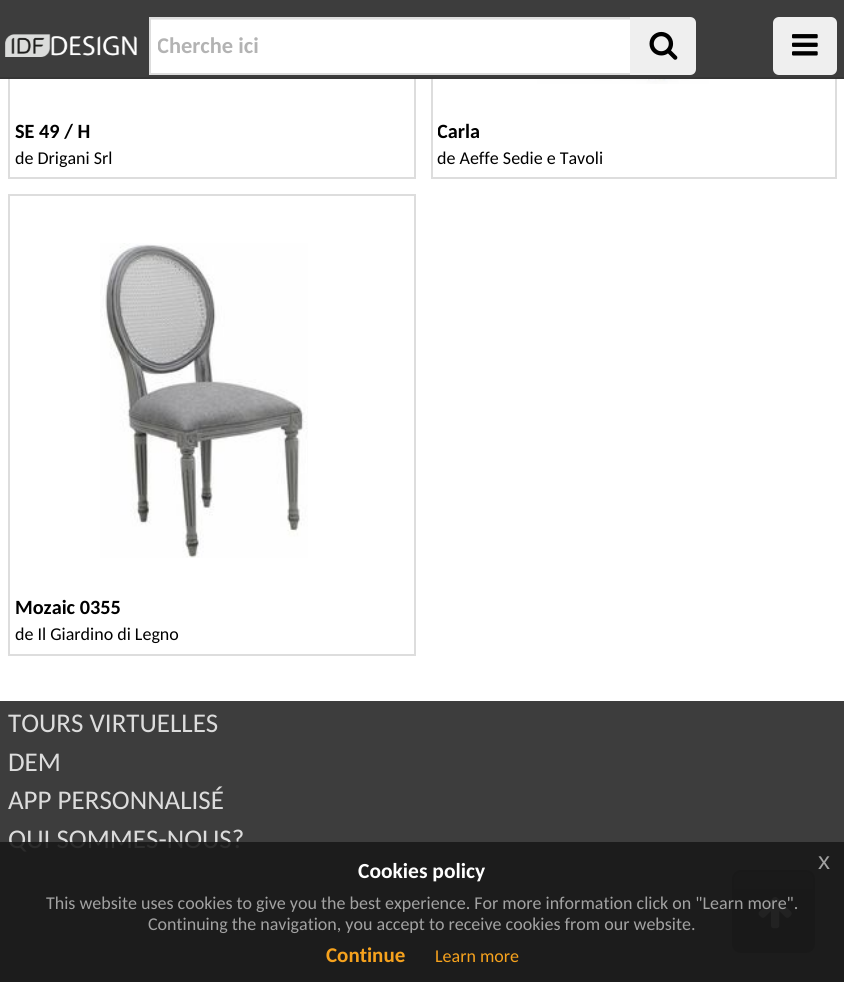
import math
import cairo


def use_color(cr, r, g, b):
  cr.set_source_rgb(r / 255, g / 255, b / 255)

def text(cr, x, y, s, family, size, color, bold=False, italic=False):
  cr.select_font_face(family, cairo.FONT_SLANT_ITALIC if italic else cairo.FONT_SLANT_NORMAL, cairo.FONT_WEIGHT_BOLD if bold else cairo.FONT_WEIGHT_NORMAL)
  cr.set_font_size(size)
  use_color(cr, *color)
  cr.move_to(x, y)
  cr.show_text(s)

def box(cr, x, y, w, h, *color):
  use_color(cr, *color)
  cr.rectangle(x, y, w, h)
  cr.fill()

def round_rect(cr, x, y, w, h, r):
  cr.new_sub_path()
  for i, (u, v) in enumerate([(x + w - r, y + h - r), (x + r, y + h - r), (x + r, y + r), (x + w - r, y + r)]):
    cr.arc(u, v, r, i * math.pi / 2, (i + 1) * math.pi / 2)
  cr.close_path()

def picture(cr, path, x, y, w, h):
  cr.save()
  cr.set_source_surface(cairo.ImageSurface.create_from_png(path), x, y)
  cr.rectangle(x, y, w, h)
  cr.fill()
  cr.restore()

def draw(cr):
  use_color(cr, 255, 255, 255)
  cr.paint()
  cr.rectangle(9, -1, 406, 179)
  use_color(cr, 221, 221, 221)
  cr.stroke()
  cr.rectangle(432, -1, 404, 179)
  cr.stroke()
  box(cr, 0, 0, 844, 77, 61, 61, 61)
  box(cr, 0, 77, 844, 2, 54, 54, 54)
  picture(cr, "img_01.png", 5, 34, 132, 23)
  box(cr, 151, 20, 479, 53, 255, 255, 255)
  box(cr, 150, 19, 480, 1, 236, 236, 236)
  cr.rectangle(150, 18, 481, 56)
  use_color(cr, 221, 221, 221)
  cr.stroke()
  use_color(cr, 239, 239, 239)
  cr.new_path()
  cr.move_to(630, 17)
  cr.line_to(690, 17)
  cr.curve_to(693.5, 17, 696, 19.5, 696, 23)
  cr.line_to(696, 69)
  cr.curve_to(696, 72.5, 693.5, 75, 690, 75)
  cr.line_to(630, 75)
  cr.close_path()
  cr.fill()
  picture(cr, "img_02.png", 649, 31, 29, 29)
  round_rect(cr, 773, 17, 64, 58, 6)
  cr.fill()
  picture(cr, "img_03.png", 792, 34, 26, 22)
  picture(cr, "img_04.png", 537, 79, 172, 5)
  cr.rectangle(9, 195, 406, 460)
  use_color(cr, 221, 221, 221)
  cr.stroke()
  picture(cr, "img_05.png", 100, 243, 208, 315)
  box(cr, 0, 701, 844, 281, 61, 61, 61)
  cr.save()
  round_rect(cr, 732, 870, 83, 83, 9)
  cr.clip()
  gradient = cairo.LinearGradient(773, 872, 773, 951)
  gradient.add_color_stop_rgba(0, 0.149, 0.149, 0.149, 1)
  gradient.add_color_stop_rgba(0.6, 0.122, 0.122, 0.122, 1)
  gradient.add_color_stop_rgba(1, 0.122, 0.122, 0.122, 1)
  cr.set_source(gradient)
  cr.rectangle(734, 872, 79, 79)
  cr.fill()
  cr.restore()
  round_rect(cr, 733, 871, 81, 81, 8)
  use_color(cr, 31, 31, 31)
  cr.stroke()
  picture(cr, "img_06.png", 758, 897, 34, 32)
  cr.save()
  cr.rectangle(158, 33, 465, 27)
  cr.clip()
  text(cr, 157, 53, "Cherche ici", "Carlito", 22.5, (179, 179, 179), bold=True)
  cr.restore()
  text(cr, 15, 138, "SE 49 / H", "Carlito", 20.25, (0, 0, 0), bold=True)
  text(cr, 15, 164, "de Drigani Srl", "Carlito", 18, (0, 0, 0))
  cr.save()
  cr.rectangle(438, 117, 392, 29)
  cr.clip()
  text(cr, 437, 138, "Carla", "Carlito", 20.25, (0, 0, 0), bold=True)
  cr.restore()
  text(cr, 437, 164, "de Aeffe Sedie e Tavoli", "Carlito", 18, (0, 0, 0))
  text(cr, 15, 614, "Mozaic 0355", "Carlito", 20.25, (0, 0, 0), bold=True)
  text(cr, 15, 640, "de Il Giardino di Legno", "Carlito", 18, (0, 0, 0))
  text(cr, 8, 732, "TOURS VIRTUELLES", "Carlito", 27, (220, 220, 220))
  text(cr, 8, 771, "DEM", "Carlito", 27, (220, 220, 220))
  text(cr, 8, 809, "APP PERSONNALISÉ", "Carlito", 27, (220, 220, 220))
  text(cr, 8, 848, "QUI SOMMES-NOUS?", "Carlito", 27, (220, 220, 220))
  cr.set_source_rgba(0.098, 0.098, 0.098, 0.9)
  cr.rectangle(0, 842, 844, 140)
  cr.fill()
  text(cr, 358, 878, "Cookies policy", "Carlito", 21.5, (255, 255, 255), bold=True)
  text(cr, 818, 869, "x", "Liberation Sans", 24, (162, 162, 162))
  text(cr, 46, 909, "This website uses cookies to give you the best experience. For more information click on \"Learn more\".", "Carlito", 18, (162, 162, 162))
  text(cr, 148, 930, "Continuing the navigation, you accept to receive cookies from our website.", "Carlito", 18, (162, 162, 162))
  text(cr, 326, 962, "Continue", "Carlito", 21, (246, 162, 29), bold=True)
  text(cr, 435, 962, "Learn more", "Carlito", 18, (246, 162, 29))


surface = cairo.ImageSurface(cairo.FORMAT_RGB24, 844, 982)
cr = cairo.Context(surface)
options = cairo.FontOptions()
options.set_hint_metrics(cairo.HINT_METRICS_OFF)
options.set_hint_style(cairo.HINT_STYLE_NONE)
cr.set_font_options(options)
cr.set_miter_limit(4)
draw(cr)
surface.write_to_png("out.png")
